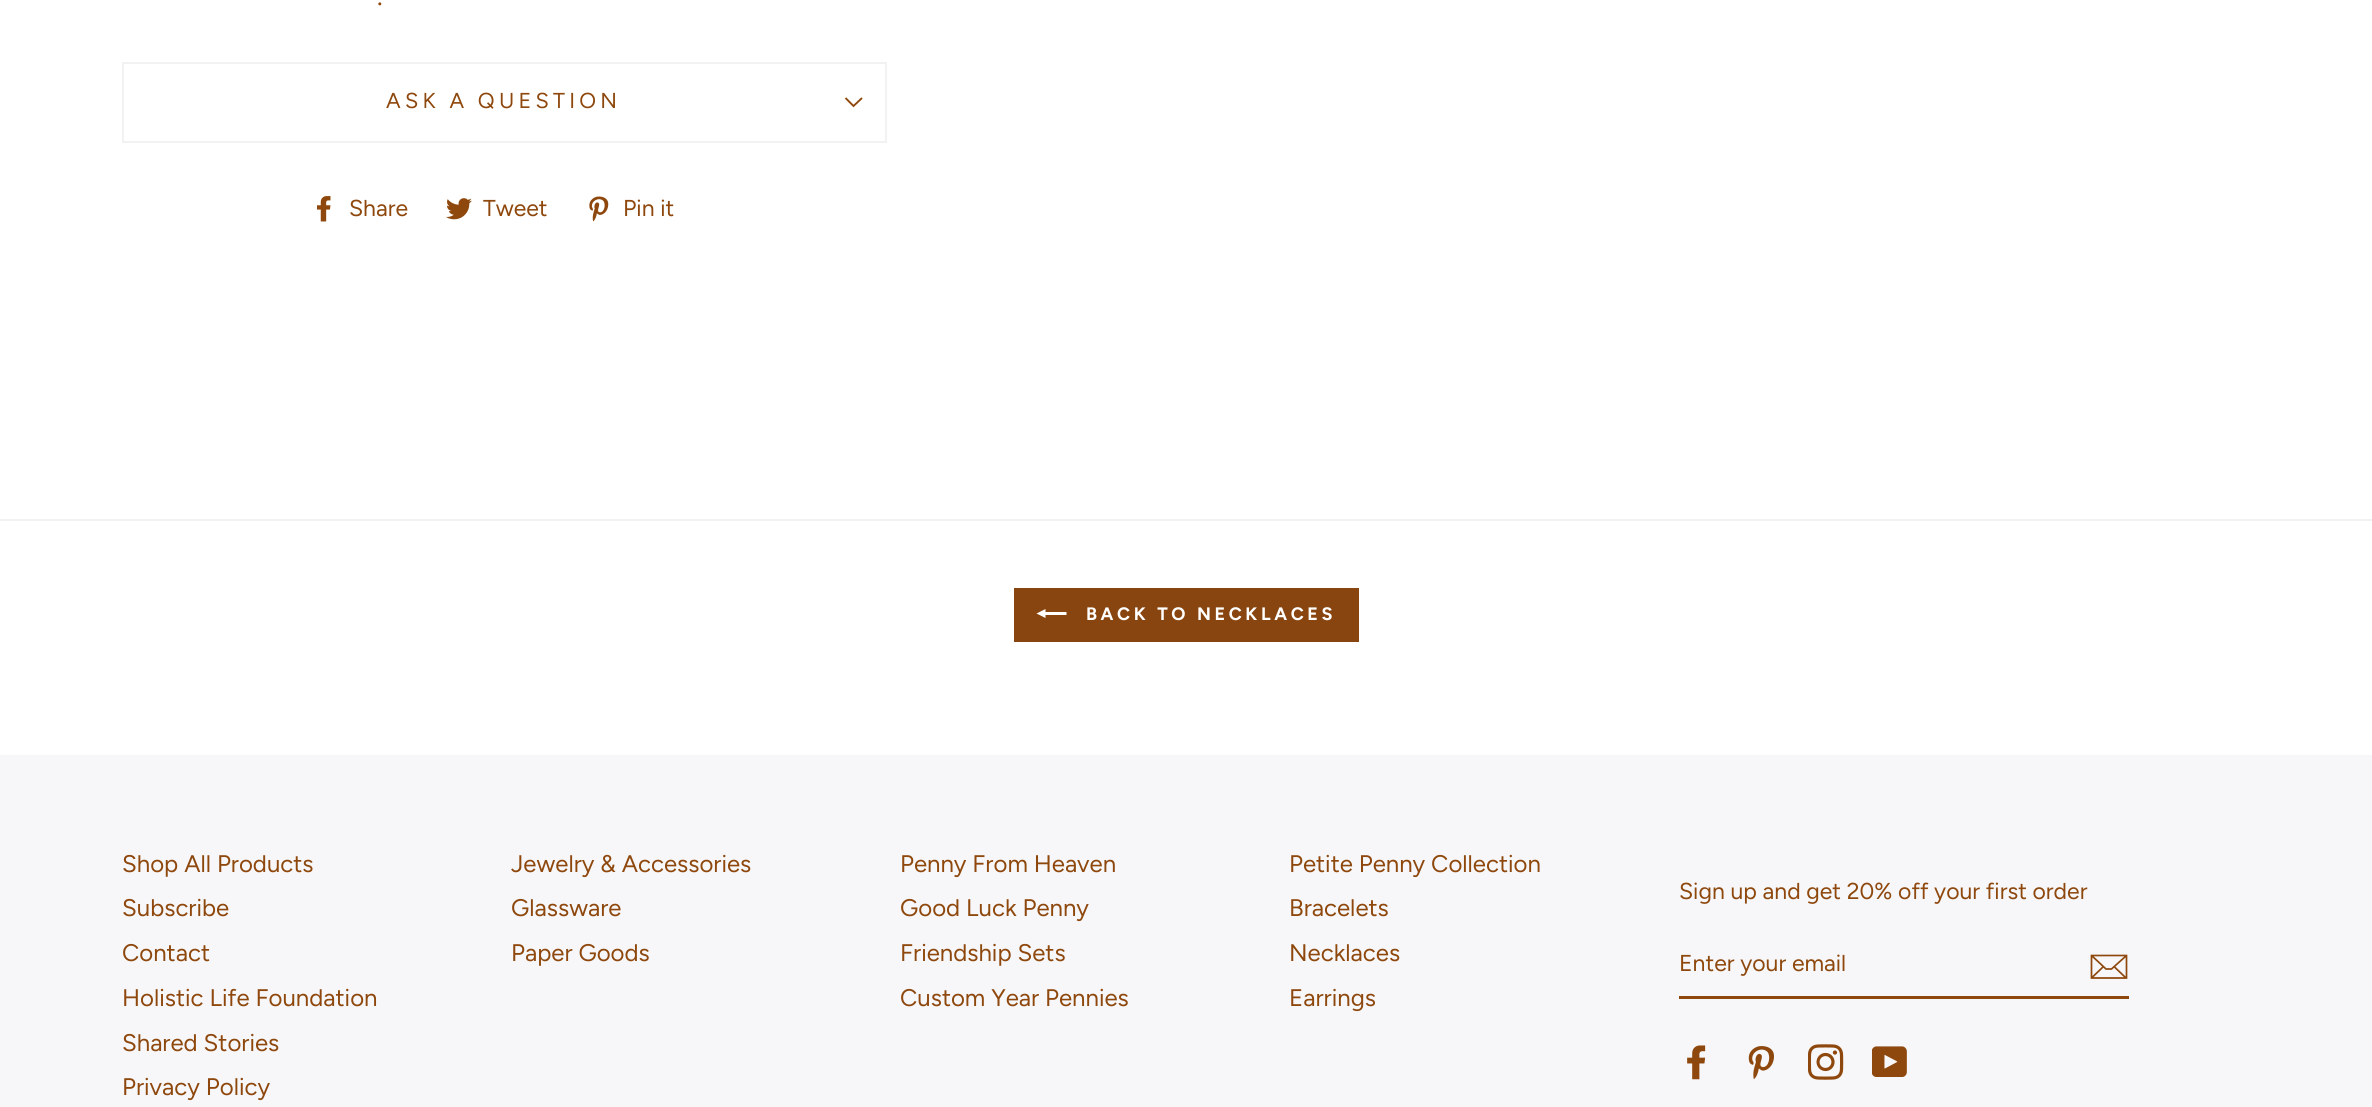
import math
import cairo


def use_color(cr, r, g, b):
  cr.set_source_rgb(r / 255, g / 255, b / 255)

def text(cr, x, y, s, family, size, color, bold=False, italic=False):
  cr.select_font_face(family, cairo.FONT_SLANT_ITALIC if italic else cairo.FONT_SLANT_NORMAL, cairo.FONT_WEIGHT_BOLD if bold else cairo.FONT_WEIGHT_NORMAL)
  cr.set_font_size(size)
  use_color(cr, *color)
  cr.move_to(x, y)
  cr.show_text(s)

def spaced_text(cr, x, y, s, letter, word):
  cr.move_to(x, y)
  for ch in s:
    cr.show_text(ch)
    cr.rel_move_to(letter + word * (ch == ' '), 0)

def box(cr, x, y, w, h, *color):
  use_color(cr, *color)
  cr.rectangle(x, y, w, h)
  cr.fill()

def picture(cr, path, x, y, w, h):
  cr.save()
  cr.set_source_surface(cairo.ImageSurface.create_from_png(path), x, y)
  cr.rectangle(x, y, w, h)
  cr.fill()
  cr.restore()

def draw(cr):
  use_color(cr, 255, 255, 255)
  cr.paint()
  box(cr, 122, 141, 765, 2, 242, 242, 242)
  box(cr, 122, 62, 765, 2, 242, 242, 242)
  box(cr, 885, 62, 2, 79, 242, 242, 242)
  box(cr, 122, 62, 2, 79, 242, 242, 242)
  cr.new_path()
  cr.move_to(845.5, 98)
  cr.line_to(853.5, 106)
  cr.line_to(862, 98)
  use_color(cr, 142, 72, 13)
  cr.set_line_width(1.9)
  cr.stroke()
  picture(cr, "img_01.png", 317, 196, 14, 26)
  picture(cr, "img_02.png", 446, 198, 26, 22)
  picture(cr, "img_03.png", 589, 196, 20, 26)
  box(cr, 0, 519, 2372, 2, 242, 242, 242)
  box(cr, 1014, 588, 345, 54, 137, 69, 16)
  use_color(cr, 255, 255, 255)
  cr.new_path()
  cr.move_to(1066.5, 612)
  cr.line_to(1066.5, 615)
  cr.line_to(1045.5, 615)
  cr.line_to(1045.5, 618)
  cr.line_to(1036.5, 613.5)
  cr.line_to(1045.5, 609)
  cr.line_to(1045.5, 612)
  cr.close_path()
  cr.fill()
  box(cr, 0, 755, 2372, 352, 247, 247, 249)
  box(cr, 1679, 996, 450, 3, 142, 72, 13)
  cr.new_path()
  cr.move_to(2126.5, 978)
  cr.line_to(2091.5, 978)
  cr.line_to(2091.5, 955.5)
  cr.line_to(2126.5, 955.5)
  cr.close_path()
  cr.move_to(2091.5, 955.5)
  cr.line_to(2106, 969)
  cr.line_to(2111.5, 969)
  cr.line_to(2126.5, 955.5)
  cr.move_to(2103.5, 966.5)
  cr.line_to(2092, 977.5)
  cr.move_to(2126, 978)
  cr.line_to(2114, 966.5)
  cr.set_line_width(1.7)
  cr.stroke()
  picture(cr, "img_04.png", 1687, 1045, 19, 35)
  picture(cr, "img_05.png", 1748, 1046, 26, 34)
  picture(cr, "img_06.png", 1808, 1044, 36, 36)
  picture(cr, "img_07.png", 1872, 1046, 35, 31)
  text(cr, 377, 5, ".", "Figtree", 27, (142, 72, 13))
  cr.set_font_size(21.6)
  spaced_text(cr, 386, 108, "ASK A QUESTION", 4.25, 0)
  text(cr, 349, 216, "Share", "Figtree", 23, (142, 72, 13))
  text(cr, 483, 216, "Tweet", "Figtree", 23, (142, 72, 13))
  text(cr, 623, 216, "Pin it", "Figtree", 23, (142, 72, 13))
  cr.select_font_face("Figtree", cairo.FONT_SLANT_NORMAL, cairo.FONT_WEIGHT_BOLD)
  cr.set_font_size(18)
  use_color(cr, 255, 255, 255)
  spaced_text(cr, 1086, 620, "BACK TO NECKLACES", 3.6, 0)
  text(cr, 122, 872, "Shop All Products", "Figtree", 24, (142, 72, 13))
  text(cr, 122, 916, "Subscribe", "Figtree", 24, (142, 72, 13))
  text(cr, 122, 961, "Contact", "Figtree", 24, (142, 72, 13))
  text(cr, 122, 1006, "Holistic Life Foundation", "Figtree", 24, (142, 72, 13))
  text(cr, 122, 1051, "Shared Stories", "Figtree", 24, (142, 72, 13))
  text(cr, 122, 1095, "Privacy Policy", "Figtree", 24, (142, 72, 13))
  text(cr, 511, 872, "Jewelry & Accessories", "Figtree", 24, (142, 72, 13))
  text(cr, 511, 916, "Glassware", "Figtree", 24, (142, 72, 13))
  text(cr, 511, 961, "Paper Goods", "Figtree", 24, (142, 72, 13))
  text(cr, 900, 872, "Penny From Heaven", "Figtree", 24, (142, 72, 13))
  text(cr, 900, 916, "Good Luck Penny", "Figtree", 24, (142, 72, 13))
  text(cr, 900, 961, "Friendship Sets", "Figtree", 24, (142, 72, 13))
  text(cr, 900, 1006, "Custom Year Pennies", "Figtree", 24, (142, 72, 13))
  text(cr, 1289, 872, "Petite Penny Collection", "Figtree", 24, (142, 72, 13))
  text(cr, 1289, 916, "Bracelets", "Figtree", 24, (142, 72, 13))
  text(cr, 1289, 961, "Necklaces", "Figtree", 24, (142, 72, 13))
  text(cr, 1289, 1006, "Earrings", "Figtree", 24, (142, 72, 13))
  text(cr, 1679, 899, "Sign up and get 20% off your first order", "Figtree", 23, (142, 72, 13))
  text(cr, 1679, 971, "Enter your email", "Figtree", 23, (142, 72, 13))


surface = cairo.ImageSurface(cairo.FORMAT_RGB24, 2372, 1107)
cr = cairo.Context(surface)
options = cairo.FontOptions()
options.set_hint_metrics(cairo.HINT_METRICS_OFF)
options.set_hint_style(cairo.HINT_STYLE_NONE)
cr.set_font_options(options)
cr.set_miter_limit(4)
draw(cr)
surface.write_to_png("out.png")
